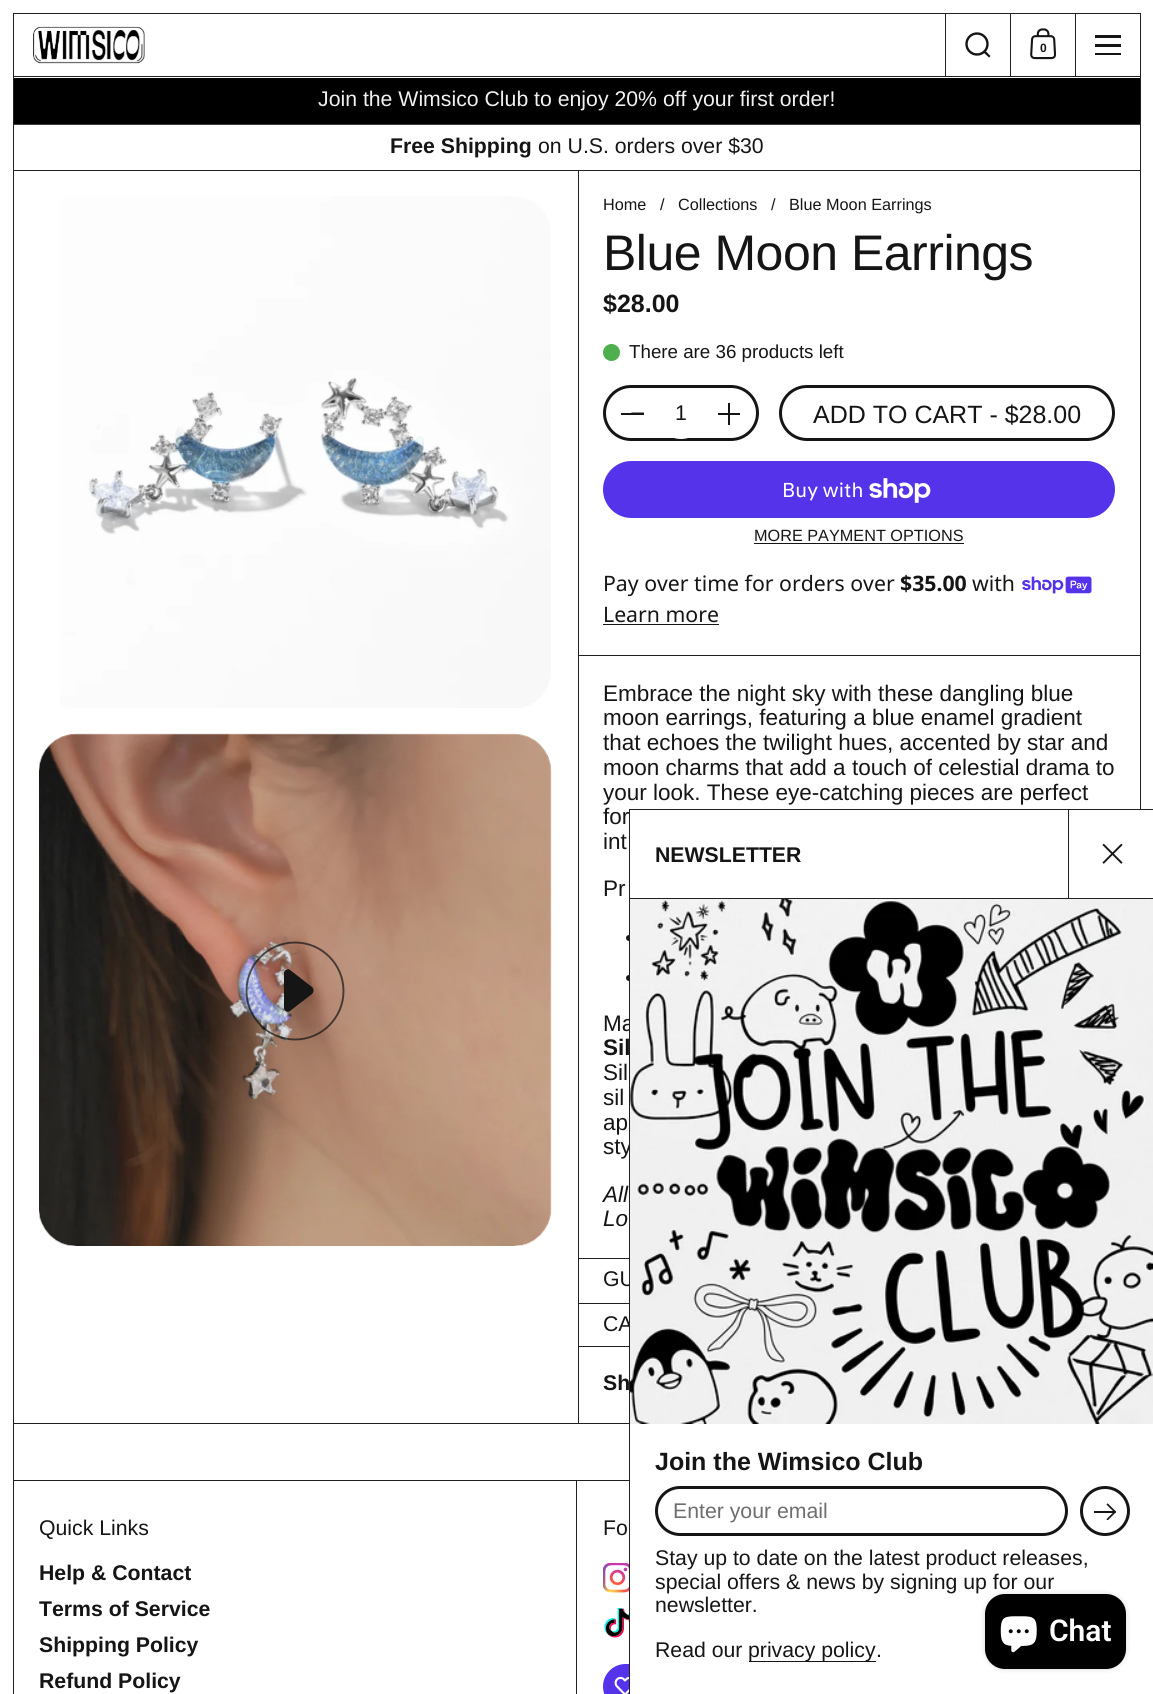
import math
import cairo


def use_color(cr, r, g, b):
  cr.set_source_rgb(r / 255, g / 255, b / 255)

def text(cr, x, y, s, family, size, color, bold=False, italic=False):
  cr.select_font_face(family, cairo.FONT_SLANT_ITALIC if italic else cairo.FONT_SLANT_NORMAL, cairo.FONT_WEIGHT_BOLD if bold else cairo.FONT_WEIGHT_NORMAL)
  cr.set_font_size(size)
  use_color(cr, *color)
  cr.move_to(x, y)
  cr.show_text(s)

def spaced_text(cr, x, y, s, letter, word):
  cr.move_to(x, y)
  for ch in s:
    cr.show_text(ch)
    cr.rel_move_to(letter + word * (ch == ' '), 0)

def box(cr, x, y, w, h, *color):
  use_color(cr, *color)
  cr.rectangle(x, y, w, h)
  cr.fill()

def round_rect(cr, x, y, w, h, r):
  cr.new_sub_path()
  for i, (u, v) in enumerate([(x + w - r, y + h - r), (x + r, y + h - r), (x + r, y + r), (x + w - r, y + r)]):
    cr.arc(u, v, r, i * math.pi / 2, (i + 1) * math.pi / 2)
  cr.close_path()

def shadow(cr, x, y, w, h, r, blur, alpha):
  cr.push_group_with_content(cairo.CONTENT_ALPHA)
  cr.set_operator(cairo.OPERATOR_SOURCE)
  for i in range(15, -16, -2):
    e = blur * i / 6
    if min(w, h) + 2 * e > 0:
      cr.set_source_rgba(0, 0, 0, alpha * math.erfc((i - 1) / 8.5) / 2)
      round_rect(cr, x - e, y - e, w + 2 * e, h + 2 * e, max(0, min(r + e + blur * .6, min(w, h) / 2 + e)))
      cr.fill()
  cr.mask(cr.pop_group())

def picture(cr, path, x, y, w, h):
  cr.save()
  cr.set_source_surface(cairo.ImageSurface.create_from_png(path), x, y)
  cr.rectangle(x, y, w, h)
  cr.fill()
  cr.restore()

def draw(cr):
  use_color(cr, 255, 255, 255)
  cr.paint()
  cr.rectangle(13.5, 13.5, 1127, 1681)
  use_color(cr, 32, 32, 32)
  cr.set_line_width(1)
  cr.stroke()
  picture(cr, "img_01.png", 33, 26, 112, 38)
  box(cr, 945, 14, 1, 62, 32, 32, 32)
  cr.arc(977, 44, 10.5, 0, 2 * math.pi)
  use_color(cr, 21, 21, 21)
  cr.set_line_width(2.4)
  cr.stroke()
  cr.new_path()
  cr.move_to(983, 52)
  cr.line_to(985, 50.5)
  cr.line_to(990.5, 56)
  cr.line_to(989, 57.5)
  cr.close_path()
  cr.fill()
  box(cr, 1010, 14, 1, 62, 32, 32, 32)
  picture(cr, "img_02.png", 1030, 28, 26, 32)
  box(cr, 1075, 14, 1, 62, 32, 32, 32)
  box(cr, 1095, 35, 26, 3, 21, 21, 21)
  box(cr, 1095, 44, 26, 3, 21, 21, 21)
  box(cr, 1095, 53, 26, 2, 21, 21, 21)
  box(cr, 14, 76, 1126, 1, 32, 32, 32)
  box(cr, 14, 78, 1126, 46, 0, 0, 0)
  box(cr, 14, 124, 1126, 1, 62, 62, 62)
  box(cr, 14, 170, 1126, 1, 32, 32, 32)
  picture(cr, "img_03.png", 60, 196, 491, 512)
  picture(cr, "img_04.png", 39, 733, 513, 513)
  cr.arc(295, 991, 48.5, 0, 2 * math.pi)
  cr.set_source_rgba(0.082, 0.082, 0.082, 0.7)
  cr.set_line_width(1.9)
  cr.stroke()
  use_color(cr, 21, 21, 21)
  cr.new_path()
  cr.move_to(290, 1011)
  cr.curve_to(288, 1013, 284, 1011, 284, 1008)
  cr.line_to(284, 973)
  cr.curve_to(284, 970, 288, 968, 290, 970)
  cr.line_to(312, 987)
  cr.curve_to(314, 989, 314, 992, 312, 994)
  cr.close_path()
  cr.fill()
  box(cr, 578, 171, 1, 1252, 32, 32, 32)
  use_color(cr, 79, 175, 77)
  cr.arc(611.5, 352.5, 8.5, 0, 2 * math.pi)
  cr.fill()
  round_rect(cr, 604.5, 386.5, 153, 53, 26.5)
  use_color(cr, 21, 21, 21)
  cr.set_line_width(3)
  cr.stroke()
  box(cr, 621, 413, 13, 2, 21, 21, 21)
  cr.new_path()
  cr.move_to(644, 415)
  cr.line_to(631, 415)
  cr.line_to(631.5, 412.5)
  cr.line_to(644, 412.5)
  cr.close_path()
  cr.fill()
  use_color(cr, 255, 255, 255)
  round_rect(cr, 656, 388, 50, 51, 25)
  cr.fill()
  box(cr, 718, 413, 12, 2, 21, 21, 21)
  box(cr, 728, 413, 2, 12, 21, 21, 21)
  box(cr, 728, 413, 12, 2, 21, 21, 21)
  box(cr, 728, 403, 2, 12, 21, 21, 21)
  round_rect(cr, 780.5, 386.5, 333, 53, 26.5)
  cr.stroke()
  use_color(cr, 84, 51, 235)
  round_rect(cr, 603, 461, 512, 57, 28.5)
  cr.fill()
  picture(cr, "img_05.png", 869, 478, 62, 25)
  box(cr, 754, 543, 210, 1, 21, 21, 21)
  picture(cr, "img_06.png", 1022, 576, 70, 18)
  box(cr, 603, 624, 116, 1, 21, 21, 21)
  box(cr, 578, 655, 562, 1, 32, 32, 32)
  use_color(cr, 21, 21, 21)
  round_rect(cr, 626, 935, 7, 6, 3)
  cr.fill()
  round_rect(cr, 626, 975, 7, 6, 3)
  cr.fill()
  box(cr, 578, 1258, 51, 1, 32, 32, 32)
  box(cr, 578, 1303, 51, 1, 32, 32, 32)
  box(cr, 578, 1346, 51, 1, 32, 32, 32)
  box(cr, 14, 1423, 615, 1, 32, 32, 32)
  box(cr, 14, 1480, 615, 1, 32, 32, 32)
  box(cr, 576, 1481, 1, 213, 32, 32, 32)
  picture(cr, "img_07.png", 603, 1563, 26, 30)
  picture(cr, "img_08.png", 604, 1608, 25, 30)
  use_color(cr, 84, 51, 235)
  round_rect(cr, 603, 1664, 200, 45, 22.5)
  cr.fill()
  picture(cr, "img_09.png", 614, 1676, 15, 18)
  text(cr, 1040, 52, "0", "Liberation Sans", 12, (21, 21, 21), bold=True)
  text(cr, 318, 106, "Join the Wimsico Club to enjoy 20% off your first order!", "Liberation Sans", 21.25, (241, 241, 241))
  text(cr, 390, 153, "Free Shipping", "Liberation Sans", 21.25, (21, 21, 21), bold=True)
  text(cr, 538, 153, "on U.S. orders over $30", "Liberation Sans", 21.25, (21, 21, 21))
  text(cr, 603, 210, "Home", "Liberation Sans", 16.25, (21, 21, 21))
  text(cr, 660, 210, "/", "Liberation Sans", 16.25, (21, 21, 21))
  text(cr, 678, 210, "Collections", "Liberation Sans", 16.25, (21, 21, 21))
  text(cr, 771, 210, "/", "Liberation Sans", 16.25, (21, 21, 21))
  text(cr, 789, 210, "Blue Moon Earrings", "Liberation Sans", 16.25, (21, 21, 21))
  cr.set_font_size(50)
  spaced_text(cr, 603, 270, "Blue Moon Earrings", -0.5, 0)
  text(cr, 603, 312, "$28.00", "Liberation Sans", 25, (21, 21, 21), bold=True)
  text(cr, 629, 358, "There are 36 products left", "Liberation Sans", 18.75, (21, 21, 21))
  text(cr, 675, 420, "1", "Liberation Sans", 21.25, (21, 21, 21))
  text(cr, 813, 423, "ADD TO CART - $28.00", "Liberation Sans", 25, (21, 21, 21))
  text(cr, 782, 497, "Buy with", "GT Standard", 20, (255, 255, 255))
  text(cr, 754, 541, "MORE PAYMENT OPTIONS", "Liberation Sans", 16.25, (21, 21, 21))
  text(cr, 603, 591, "Pay over time for orders over", "Noto Sans", 21.25, (21, 21, 21))
  text(cr, 900, 591, "$35.00", "Noto Sans", 21.25, (21, 21, 21), bold=True)
  text(cr, 972, 591, "with", "Noto Sans", 21.25, (21, 21, 21))
  text(cr, 603, 622, "Learn more", "Noto Sans", 21.25, (21, 21, 21))
  text(cr, 603, 701, "Embrace the night sky with these dangling blue", "Liberation Sans", 22.5, (21, 21, 21))
  text(cr, 603, 725, "moon earrings, featuring a blue enamel gradient", "Liberation Sans", 22.5, (21, 21, 21))
  text(cr, 603, 750, "that echoes the twilight hues, accented by star and", "Liberation Sans", 22.5, (21, 21, 21))
  text(cr, 603, 775, "moon charms that add a touch of celestial drama to", "Liberation Sans", 22.5, (21, 21, 21))
  text(cr, 603, 800, "your look. These eye-catching pieces are perfect", "Liberation Sans", 22.5, (21, 21, 21))
  text(cr, 603, 824, "for", "Liberation Sans", 22.5, (21, 21, 21))
  text(cr, 603, 849, "int", "Liberation Sans", 22.5, (21, 21, 21))
  text(cr, 603, 896, "Pr", "Liberation Sans", 22.5, (21, 21, 21))
  text(cr, 603, 1031, "Ma", "Liberation Sans", 22.5, (21, 21, 21))
  text(cr, 603, 1055, "Sil", "Liberation Sans", 22.5, (21, 21, 21), bold=True)
  text(cr, 603, 1080, "Sil", "Liberation Sans", 22.5, (21, 21, 21))
  text(cr, 603, 1105, "sil", "Liberation Sans", 22.5, (21, 21, 21))
  text(cr, 603, 1130, "ap", "Liberation Sans", 22.5, (21, 21, 21))
  text(cr, 603, 1154, "sty", "Liberation Sans", 22.5, (21, 21, 21))
  text(cr, 603, 1202, "All", "Liberation Sans", 22.5, (21, 21, 21), italic=True)
  text(cr, 603, 1226, "Lo", "Liberation Sans", 22.5, (21, 21, 21), italic=True)
  text(cr, 603, 1286, "GU", "Liberation Sans", 21.25, (21, 21, 21))
  text(cr, 603, 1331, "CA", "Liberation Sans", 21.25, (21, 21, 21))
  text(cr, 603, 1390, "Sh", "Liberation Sans", 21.25, (21, 21, 21), bold=True)
  text(cr, 39, 1535, "Quick Links", "Liberation Sans", 21.25, (21, 21, 21))
  text(cr, 39, 1580, "Help & Contact", "Liberation Sans", 21.25, (21, 21, 21), bold=True)
  text(cr, 39, 1616, "Terms of Service", "Liberation Sans", 21.25, (21, 21, 21), bold=True)
  text(cr, 39, 1652, "Shipping Policy", "Liberation Sans", 21.25, (21, 21, 21), bold=True)
  text(cr, 39, 1688, "Refund Policy", "Liberation Sans", 21.25, (21, 21, 21), bold=True)
  text(cr, 603, 1535, "Fo", "Liberation Sans", 21.25, (21, 21, 21))
  box(cr, 630, 810, 511, 884, 255, 255, 255)
  cr.rectangle(629.5, 809.5, 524, 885)
  use_color(cr, 32, 32, 32)
  cr.set_line_width(1)
  cr.stroke()
  box(cr, 630, 898, 523, 1, 32, 32, 32)
  text(cr, 655, 862, "NEWSLETTER", "Liberation Sans", 21.25, (21, 21, 21), bold=True)
  box(cr, 1068, 810, 1, 88, 32, 32, 32)
  picture(cr, "img_10.png", 1102, 843, 21, 21)
  picture(cr, "img_11.png", 630, 899, 523, 525)
  text(cr, 655, 1470, "Join the Wimsico Club", "Liberation Sans", 25, (21, 21, 21), bold=True)
  round_rect(cr, 656.5, 1487.5, 410, 47, 23.5)
  cr.set_line_width(3)
  cr.stroke()
  text(cr, 673, 1518, "Enter your email", "Liberation Sans", 21.25, (110, 110, 110))
  cr.new_path()
  cr.arc(1105, 1511, 23.5, 0, 2 * math.pi)
  use_color(cr, 21, 21, 21)
  cr.stroke()
  picture(cr, "img_12.png", 1094, 1503, 22, 17)
  text(cr, 655, 1565, "Stay up to date on the latest product releases,", "Liberation Sans", 21.25, (21, 21, 21))
  text(cr, 655, 1589, "special offers & news by signing up for our", "Liberation Sans", 21.25, (21, 21, 21))
  text(cr, 655, 1612, "newsletter.", "Liberation Sans", 21.25, (21, 21, 21))
  text(cr, 655, 1657, "Read our", "Liberation Sans", 21.25, (21, 21, 21))
  box(cr, 749, 1661, 127, 1, 21, 21, 21)
  text(cr, 748, 1657, "privacy policy", "Liberation Sans", 21.25, (21, 21, 21))
  text(cr, 876, 1657, ".", "Liberation Sans", 21.25, (21, 21, 21))
  use_color(cr, 0, 0, 0)
  shadow(cr, 985, 1594, 141, 75, 20, 3, 0.15)
  use_color(cr, 0, 0, 0)
  round_rect(cr, 985, 1594, 141, 75, 20)
  cr.fill()
  picture(cr, "img_13.png", 1000, 1616, 37, 37)
  text(cr, 1049, 1641, "Chat", "Roboto SemiBold", 30, (255, 255, 255))


surface = cairo.ImageSurface(cairo.FORMAT_RGB24, 1153, 1694)
cr = cairo.Context(surface)
options = cairo.FontOptions()
options.set_hint_metrics(cairo.HINT_METRICS_OFF)
options.set_hint_style(cairo.HINT_STYLE_NONE)
cr.set_font_options(options)
cr.set_miter_limit(4)
draw(cr)
surface.write_to_png("out.png")
